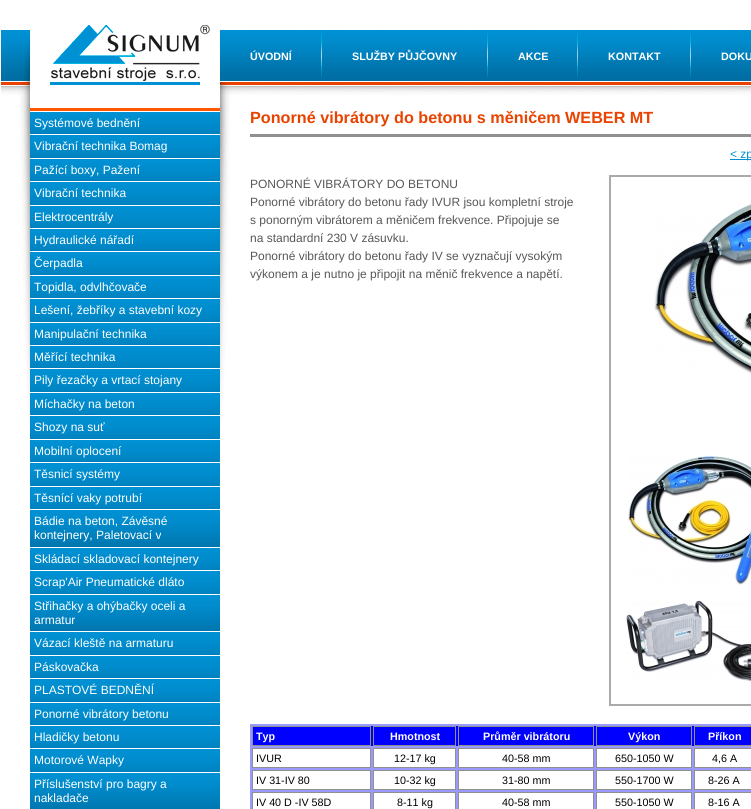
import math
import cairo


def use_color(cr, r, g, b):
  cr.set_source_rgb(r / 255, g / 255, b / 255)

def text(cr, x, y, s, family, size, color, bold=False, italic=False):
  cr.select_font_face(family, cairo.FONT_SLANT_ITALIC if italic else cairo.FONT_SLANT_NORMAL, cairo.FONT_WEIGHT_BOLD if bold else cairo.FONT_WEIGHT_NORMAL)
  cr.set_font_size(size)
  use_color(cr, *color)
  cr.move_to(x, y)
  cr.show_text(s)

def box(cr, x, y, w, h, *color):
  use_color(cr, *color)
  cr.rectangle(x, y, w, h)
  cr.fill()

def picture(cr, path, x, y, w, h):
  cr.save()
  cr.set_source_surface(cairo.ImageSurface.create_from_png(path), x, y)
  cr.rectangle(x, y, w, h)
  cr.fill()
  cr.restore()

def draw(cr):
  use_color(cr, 255, 255, 255)
  cr.paint()
  picture(cr, "img_01.png", 20, 98, 210, 325)
  picture(cr, "img_02.png", 0, 24, 751, 74)
  picture(cr, "img_03.png", 50, 25, 160, 60)
  picture(cr, "img_04.png", 220, 30, 102, 52)
  picture(cr, "img_05.png", 322, 30, 166, 52)
  picture(cr, "img_06.png", 488, 30, 90, 52)
  picture(cr, "img_07.png", 578, 30, 113, 52)
  picture(cr, "img_08.png", 691, 30, 60, 52)
  box(cr, 30, 108, 190, 3, 255, 87, 0)
  box(cr, 30, 133, 190, 1, 0, 128, 188)
  picture(cr, "img_09.png", 30, 112, 190, 21)
  box(cr, 30, 157, 190, 1, 0, 128, 188)
  picture(cr, "img_10.png", 30, 135, 190, 22)
  box(cr, 30, 180, 190, 1, 0, 128, 188)
  picture(cr, "img_09.png", 30, 159, 190, 21)
  box(cr, 30, 204, 190, 1, 0, 128, 188)
  picture(cr, "img_10.png", 30, 182, 190, 22)
  box(cr, 30, 227, 190, 1, 0, 128, 188)
  picture(cr, "img_09.png", 30, 206, 190, 21)
  box(cr, 30, 250, 190, 1, 0, 128, 188)
  picture(cr, "img_09.png", 30, 229, 190, 21)
  box(cr, 30, 274, 190, 1, 0, 128, 188)
  picture(cr, "img_10.png", 30, 252, 190, 22)
  box(cr, 30, 297, 190, 1, 0, 128, 188)
  picture(cr, "img_09.png", 30, 276, 190, 21)
  box(cr, 30, 321, 190, 1, 0, 128, 188)
  picture(cr, "img_10.png", 30, 299, 190, 22)
  box(cr, 30, 344, 190, 1, 0, 128, 188)
  picture(cr, "img_09.png", 30, 323, 190, 21)
  box(cr, 30, 367, 190, 1, 0, 128, 188)
  picture(cr, "img_09.png", 30, 346, 190, 21)
  box(cr, 30, 391, 190, 1, 0, 128, 188)
  picture(cr, "img_10.png", 30, 369, 190, 22)
  box(cr, 30, 414, 190, 1, 0, 128, 188)
  picture(cr, "img_09.png", 30, 393, 190, 21)
  box(cr, 30, 438, 190, 1, 0, 128, 188)
  picture(cr, "img_10.png", 30, 416, 190, 22)
  box(cr, 30, 461, 190, 1, 0, 128, 188)
  picture(cr, "img_09.png", 30, 440, 190, 21)
  box(cr, 30, 485, 190, 1, 0, 128, 188)
  picture(cr, "img_10.png", 30, 463, 190, 22)
  box(cr, 30, 508, 190, 1, 0, 128, 188)
  picture(cr, "img_09.png", 30, 487, 190, 21)
  picture(cr, "img_11.png", 30, 510, 190, 37)
  box(cr, 30, 569, 190, 1, 0, 128, 188)
  picture(cr, "img_09.png", 30, 548, 190, 21)
  box(cr, 30, 593, 190, 1, 0, 128, 188)
  picture(cr, "img_10.png", 30, 571, 190, 22)
  picture(cr, "img_12.png", 30, 595, 190, 36)
  box(cr, 30, 654, 190, 1, 0, 128, 188)
  picture(cr, "img_10.png", 30, 632, 190, 22)
  box(cr, 30, 677, 190, 1, 0, 128, 188)
  picture(cr, "img_09.png", 30, 656, 190, 21)
  box(cr, 30, 701, 190, 1, 0, 128, 188)
  picture(cr, "img_10.png", 30, 679, 190, 22)
  box(cr, 30, 724, 190, 1, 0, 128, 188)
  picture(cr, "img_09.png", 30, 703, 190, 21)
  box(cr, 30, 747, 190, 1, 0, 128, 188)
  picture(cr, "img_09.png", 30, 726, 190, 21)
  box(cr, 30, 771, 190, 1, 0, 128, 188)
  picture(cr, "img_10.png", 30, 749, 190, 22)
  picture(cr, "img_13.png", 30, 773, 190, 36)
  box(cr, 250, 134, 501, 3, 144, 144, 144)
  box(cr, 730, 159, 21, 1, 0, 144, 210)
  cr.rectangle(610, 176, 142, 529)
  use_color(cr, 170, 170, 170)
  cr.stroke()
  picture(cr, "img_14.png", 654, 203, 97, 171)
  picture(cr, "img_15.png", 628, 455, 123, 130)
  picture(cr, "img_16.png", 626, 600, 125, 82)
  box(cr, 250, 724, 501, 85, 153, 153, 255)
  box(cr, 253, 726, 498, 20, 0, 0, 255)
  cr.rectangle(252.5, 726.5, 118, 19)
  use_color(cr, 144, 144, 144)
  cr.set_line_width(1)
  cr.stroke()
  cr.rectangle(373.5, 726.5, 82, 19)
  cr.stroke()
  cr.rectangle(458.5, 726.5, 135, 19)
  cr.stroke()
  cr.rectangle(596.5, 726.5, 95, 19)
  cr.stroke()
  cr.rectangle(694.5, 726.5, 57, 19)
  cr.stroke()
  use_color(cr, 255, 255, 255)
  cr.rectangle(252.5, 748.5, 118, 19)
  cr.fill_preserve()
  use_color(cr, 144, 144, 144)
  cr.stroke()
  use_color(cr, 255, 255, 255)
  cr.rectangle(373.5, 748.5, 82, 19)
  cr.fill_preserve()
  use_color(cr, 144, 144, 144)
  cr.stroke()
  use_color(cr, 255, 255, 255)
  cr.rectangle(458.5, 748.5, 135, 19)
  cr.fill_preserve()
  use_color(cr, 144, 144, 144)
  cr.stroke()
  use_color(cr, 255, 255, 255)
  cr.rectangle(596.5, 748.5, 95, 19)
  cr.fill_preserve()
  use_color(cr, 144, 144, 144)
  cr.stroke()
  use_color(cr, 255, 255, 255)
  cr.rectangle(694.5, 748.5, 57, 19)
  cr.fill_preserve()
  use_color(cr, 144, 144, 144)
  cr.stroke()
  use_color(cr, 255, 255, 255)
  cr.rectangle(252.5, 770.5, 118, 19)
  cr.fill_preserve()
  use_color(cr, 144, 144, 144)
  cr.stroke()
  use_color(cr, 255, 255, 255)
  cr.rectangle(373.5, 770.5, 82, 19)
  cr.fill_preserve()
  use_color(cr, 144, 144, 144)
  cr.stroke()
  use_color(cr, 255, 255, 255)
  cr.rectangle(458.5, 770.5, 135, 19)
  cr.fill_preserve()
  use_color(cr, 144, 144, 144)
  cr.stroke()
  use_color(cr, 255, 255, 255)
  cr.rectangle(596.5, 770.5, 95, 19)
  cr.fill_preserve()
  use_color(cr, 144, 144, 144)
  cr.stroke()
  use_color(cr, 255, 255, 255)
  cr.rectangle(694.5, 770.5, 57, 19)
  cr.fill_preserve()
  use_color(cr, 144, 144, 144)
  cr.stroke()
  use_color(cr, 255, 255, 255)
  cr.rectangle(252.5, 792.5, 118, 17)
  cr.fill_preserve()
  use_color(cr, 144, 144, 144)
  cr.stroke()
  use_color(cr, 255, 255, 255)
  cr.rectangle(373.5, 792.5, 82, 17)
  cr.fill_preserve()
  use_color(cr, 144, 144, 144)
  cr.stroke()
  use_color(cr, 255, 255, 255)
  cr.rectangle(458.5, 792.5, 135, 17)
  cr.fill_preserve()
  use_color(cr, 144, 144, 144)
  cr.stroke()
  use_color(cr, 255, 255, 255)
  cr.rectangle(596.5, 792.5, 95, 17)
  cr.fill_preserve()
  use_color(cr, 144, 144, 144)
  cr.stroke()
  use_color(cr, 255, 255, 255)
  cr.rectangle(694.5, 792.5, 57, 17)
  cr.fill_preserve()
  use_color(cr, 144, 144, 144)
  cr.stroke()
  text(cr, 250, 60, "ÚVODNÍ", "Liberation Sans", 10.75, (255, 255, 255), bold=True)
  text(cr, 352, 60, "SLUŽBY PŮJČOVNY", "Liberation Sans", 10.75, (255, 255, 255), bold=True)
  text(cr, 518, 60, "AKCE", "Liberation Sans", 10.75, (255, 255, 255), bold=True)
  text(cr, 608, 60, "KONTAKT", "Liberation Sans", 10.75, (255, 255, 255), bold=True)
  text(cr, 721, 60, "DOKU", "Liberation Sans", 10.75, (255, 255, 255), bold=True)
  text(cr, 34, 127, "Systémové bednění", "Liberation Sans", 12, (255, 255, 255))
  text(cr, 34, 150, "Vibrační technika Bomag", "Liberation Sans", 12, (255, 255, 255))
  text(cr, 34, 174, "Pažící boxy, Pažení", "Liberation Sans", 12, (255, 255, 255))
  text(cr, 34, 197, "Vibrační technika", "Liberation Sans", 12, (255, 255, 255))
  text(cr, 34, 221, "Elektrocentrály", "Liberation Sans", 12, (255, 255, 255))
  text(cr, 34, 244, "Hydraulické nářadí", "Liberation Sans", 12, (255, 255, 255))
  text(cr, 34, 267, "Čerpadla", "Liberation Sans", 12, (255, 255, 255))
  text(cr, 34, 291, "Topidla, odvlhčovače", "Liberation Sans", 12, (255, 255, 255))
  text(cr, 34, 314, "Lešení, žebříky a stavební kozy", "Liberation Sans", 12, (255, 255, 255))
  text(cr, 34, 338, "Manipulační technika", "Liberation Sans", 12, (255, 255, 255))
  text(cr, 34, 361, "Měřící technika", "Liberation Sans", 12, (255, 255, 255))
  text(cr, 34, 384, "Pily řezačky a vrtací stojany", "Liberation Sans", 12, (255, 255, 255))
  text(cr, 34, 408, "Míchačky na beton", "Liberation Sans", 12, (255, 255, 255))
  text(cr, 34, 431, "Shozy na suť", "Liberation Sans", 12, (255, 255, 255))
  text(cr, 34, 455, "Mobilní oplocení", "Liberation Sans", 12, (255, 255, 255))
  text(cr, 34, 478, "Těsnicí systémy", "Liberation Sans", 12, (255, 255, 255))
  text(cr, 34, 502, "Těsnící vaky potrubí", "Liberation Sans", 12, (255, 255, 255))
  text(cr, 34, 525, "Bádie na beton, Závěsné", "Liberation Sans", 12, (255, 255, 255))
  text(cr, 34, 539, "kontejnery, Paletovací v", "Liberation Sans", 12, (255, 255, 255))
  text(cr, 34, 563, "Skládací skladovací kontejnery", "Liberation Sans", 12, (255, 255, 255))
  text(cr, 34, 586, "Scrap'Air Pneumatické dláto", "Liberation Sans", 12, (255, 255, 255))
  text(cr, 34, 610, "Střihačky a ohýbačky oceli a", "Liberation Sans", 12, (255, 255, 255))
  text(cr, 34, 624, "armatur", "Liberation Sans", 12, (255, 255, 255))
  text(cr, 34, 647, "Vázací kleště na armaturu", "Liberation Sans", 12, (255, 255, 255))
  text(cr, 34, 671, "Páskovačka", "Liberation Sans", 12, (255, 255, 255))
  text(cr, 34, 694, "PLASTOVÉ BEDNĚNÍ", "Liberation Sans", 12, (255, 255, 255))
  text(cr, 34, 718, "Ponorné vibrátory betonu", "Liberation Sans", 12, (255, 255, 255))
  text(cr, 34, 741, "Hladičky betonu", "Liberation Sans", 12, (255, 255, 255))
  text(cr, 34, 764, "Motorové Wapky", "Liberation Sans", 12, (255, 255, 255))
  text(cr, 34, 788, "Příslušenství pro bagry a", "Liberation Sans", 12, (255, 255, 255))
  text(cr, 34, 802, "nakladače", "Liberation Sans", 12, (255, 255, 255))
  text(cr, 250, 123, "Ponorné vibrátory do betonu s měničem WEBER MT", "Liberation Sans", 16.2, (232, 67, 0), bold=True)
  text(cr, 730, 158, "< zp", "Liberation Sans", 12, (0, 144, 210))
  text(cr, 250, 188, "PONORNÉ VIBRÁTORY DO BETONU", "Liberation Sans", 12, (87, 87, 87))
  text(cr, 250, 206, "Ponorné vibrátory do betonu řady IVUR jsou kompletní stroje", "Liberation Sans", 12, (87, 87, 87))
  text(cr, 250, 224, "s ponorným vibrátorem a měničem frekvence. Připojuje se", "Liberation Sans", 12, (87, 87, 87))
  text(cr, 250, 242, "na standardní 230 V zásuvku.", "Liberation Sans", 12, (87, 87, 87))
  text(cr, 250, 260, "Ponorné vibrátory do betonu řady IV se vyznačují vysokým", "Liberation Sans", 12, (87, 87, 87))
  text(cr, 250, 278, "výkonem a je nutno je připojit na měnič frekvence a napětí.", "Liberation Sans", 12, (87, 87, 87))
  text(cr, 256, 740, "Typ", "Liberation Sans", 10.75, (255, 255, 255), bold=True)
  text(cr, 390, 740, "Hmotnost", "Liberation Sans", 10.75, (255, 255, 255), bold=True)
  text(cr, 483, 740, "Průměr vibrátoru", "Liberation Sans", 10.75, (255, 255, 255), bold=True)
  text(cr, 628, 740, "Výkon", "Liberation Sans", 10.75, (255, 255, 255), bold=True)
  text(cr, 708, 740, "Příkon", "Liberation Sans", 10.75, (255, 255, 255), bold=True)
  text(cr, 256, 762, "IVUR", "Liberation Sans", 10.75, (0, 0, 0))
  text(cr, 394, 762, "12-17 kg", "Liberation Sans", 10.75, (0, 0, 0))
  text(cr, 502, 762, "40-58 mm", "Liberation Sans", 10.75, (0, 0, 0))
  text(cr, 615, 762, "650-1050 W", "Liberation Sans", 10.75, (0, 0, 0))
  text(cr, 712, 762, "4,6 A", "Liberation Sans", 10.75, (0, 0, 0))
  text(cr, 256, 784, "IV 31-IV 80", "Liberation Sans", 10.75, (0, 0, 0))
  text(cr, 394, 784, "10-32 kg", "Liberation Sans", 10.75, (0, 0, 0))
  text(cr, 502, 784, "31-80 mm", "Liberation Sans", 10.75, (0, 0, 0))
  text(cr, 615, 784, "550-1700 W", "Liberation Sans", 10.75, (0, 0, 0))
  text(cr, 708, 784, "8-26 A", "Liberation Sans", 10.75, (0, 0, 0))
  text(cr, 256, 806, "IV 40 D -IV 58D", "Liberation Sans", 10.75, (0, 0, 0))
  text(cr, 397, 806, "8-11 kg", "Liberation Sans", 10.75, (0, 0, 0))
  text(cr, 502, 806, "40-58 mm", "Liberation Sans", 10.75, (0, 0, 0))
  text(cr, 615, 806, "550-1050 W", "Liberation Sans", 10.75, (0, 0, 0))
  text(cr, 708, 806, "8-16 A", "Liberation Sans", 10.75, (0, 0, 0))


surface = cairo.ImageSurface(cairo.FORMAT_RGB24, 751, 809)
cr = cairo.Context(surface)
options = cairo.FontOptions()
options.set_hint_metrics(cairo.HINT_METRICS_OFF)
options.set_hint_style(cairo.HINT_STYLE_NONE)
cr.set_font_options(options)
cr.set_miter_limit(4)
draw(cr)
surface.write_to_png("out.png")
